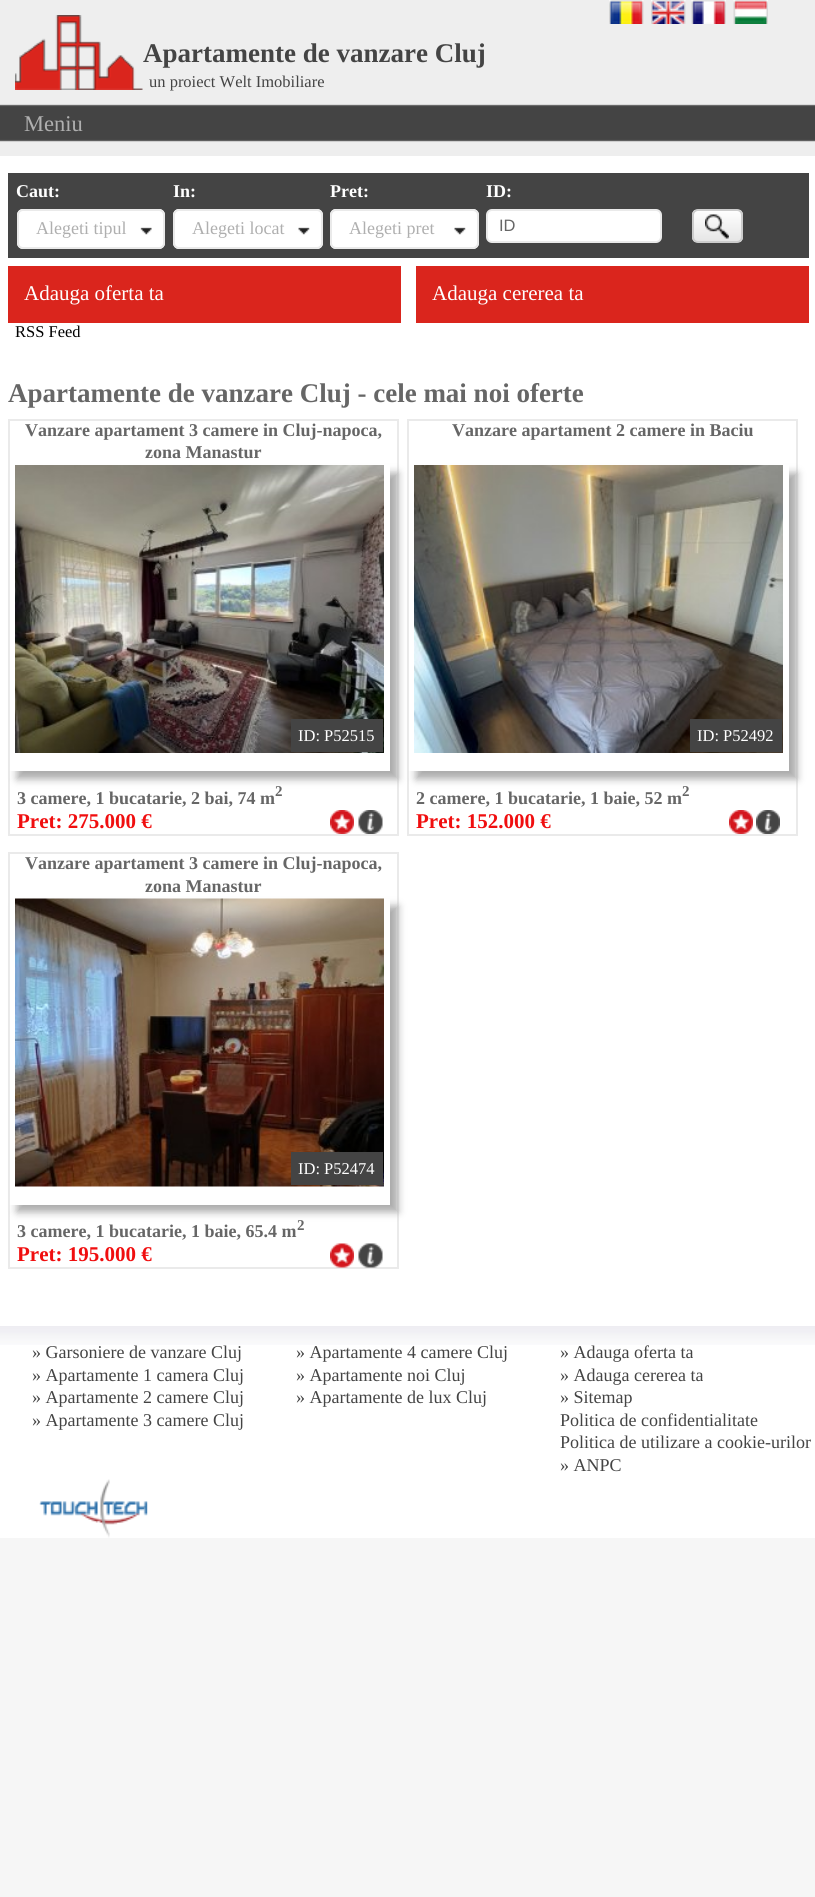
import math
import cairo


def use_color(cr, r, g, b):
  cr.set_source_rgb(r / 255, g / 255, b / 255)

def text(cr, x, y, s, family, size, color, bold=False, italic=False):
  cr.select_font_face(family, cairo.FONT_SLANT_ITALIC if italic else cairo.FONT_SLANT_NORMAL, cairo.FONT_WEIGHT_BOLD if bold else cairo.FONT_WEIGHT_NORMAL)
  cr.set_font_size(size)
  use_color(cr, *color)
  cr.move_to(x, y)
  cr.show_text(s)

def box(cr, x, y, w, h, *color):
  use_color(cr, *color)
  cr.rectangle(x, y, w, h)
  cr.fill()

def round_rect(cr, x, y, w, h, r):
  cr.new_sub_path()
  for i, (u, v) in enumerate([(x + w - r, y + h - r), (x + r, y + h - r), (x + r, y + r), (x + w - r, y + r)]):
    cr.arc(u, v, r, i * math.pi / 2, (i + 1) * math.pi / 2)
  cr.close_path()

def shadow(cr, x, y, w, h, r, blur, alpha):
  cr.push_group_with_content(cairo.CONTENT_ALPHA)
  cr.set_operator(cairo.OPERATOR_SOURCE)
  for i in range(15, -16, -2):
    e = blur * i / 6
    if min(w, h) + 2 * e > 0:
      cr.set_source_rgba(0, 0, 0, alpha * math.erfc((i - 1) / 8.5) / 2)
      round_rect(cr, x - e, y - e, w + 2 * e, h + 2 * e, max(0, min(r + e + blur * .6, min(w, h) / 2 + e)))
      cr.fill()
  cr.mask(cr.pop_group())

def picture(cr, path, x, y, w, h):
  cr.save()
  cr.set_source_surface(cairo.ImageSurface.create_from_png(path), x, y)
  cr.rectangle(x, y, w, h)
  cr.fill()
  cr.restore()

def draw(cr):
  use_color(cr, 246, 246, 246)
  cr.paint()
  picture(cr, "img_01.png", 0, 0, 815, 156)
  picture(cr, "img_02.png", 609, 0, 35, 24)
  picture(cr, "img_03.png", 651, 0, 35, 24)
  picture(cr, "img_04.png", 691, 0, 35, 24)
  picture(cr, "img_05.png", 733, 0, 35, 24)
  picture(cr, "img_06.png", 15, 15, 128, 75)
  box(cr, 0, 156, 815, 1382, 255, 255, 255)
  box(cr, 8, 173, 801, 85, 68, 68, 68)
  use_color(cr, 255, 255, 255)
  round_rect(cr, 17, 209, 148, 40, 6)
  cr.fill()
  picture(cr, "img_07.png", 140, 227, 12, 8)
  round_rect(cr, 18, 210, 146, 38, 5)
  use_color(cr, 234, 234, 234)
  cr.stroke()
  use_color(cr, 255, 255, 255)
  round_rect(cr, 173, 209, 150, 40, 6)
  cr.fill()
  picture(cr, "img_08.png", 298, 227, 12, 8)
  round_rect(cr, 174, 210, 148, 38, 5)
  use_color(cr, 234, 234, 234)
  cr.stroke()
  use_color(cr, 255, 255, 255)
  round_rect(cr, 330, 209, 149, 40, 6)
  cr.fill()
  picture(cr, "img_08.png", 454, 227, 12, 8)
  round_rect(cr, 331, 210, 147, 38, 5)
  use_color(cr, 234, 234, 234)
  cr.stroke()
  use_color(cr, 255, 255, 255)
  round_rect(cr, 487, 210, 174, 32, 5)
  cr.fill_preserve()
  use_color(cr, 234, 234, 234)
  cr.stroke()
  cr.save()
  round_rect(cr, 692, 209, 51, 34, 6)
  cr.clip()
  gradient = cairo.LinearGradient(717, 210, 717, 242)
  gradient.add_color_stop_rgba(0, 1, 1, 1, 1)
  gradient.add_color_stop_rgba(1, 0.898, 0.898, 0.898, 1)
  cr.set_source(gradient)
  cr.rectangle(692, 210, 51, 32)
  cr.fill()
  cr.restore()
  round_rect(cr, 693, 210, 49, 32, 5)
  use_color(cr, 204, 204, 204)
  cr.stroke()
  picture(cr, "img_09.png", 705, 214, 24, 25)
  box(cr, 8, 266, 393, 57, 218, 37, 29)
  box(cr, 416, 266, 393, 57, 218, 37, 29)
  cr.rectangle(9, 420, 389, 415)
  use_color(cr, 234, 234, 234)
  cr.stroke()
  cr.save()
  cr.set_fill_rule(cairo.FILL_RULE_EVEN_ODD)
  cr.new_path()
  cr.move_to(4, 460)
  cr.line_to(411, 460)
  cr.line_to(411, 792)
  cr.line_to(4, 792)
  cr.close_path()
  cr.move_to(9, 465)
  cr.line_to(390, 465)
  cr.line_to(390, 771)
  cr.line_to(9, 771)
  cr.close_path()
  cr.clip()
  use_color(cr, 171, 171, 171)
  shadow(cr, 17, 473, 381, 306, 0, 4, 1)
  cr.restore()
  picture(cr, "img_10.png", 15, 465, 369, 288)
  box(cr, 291, 719, 92, 33, 68, 68, 68)
  picture(cr, "img_11.png", 330, 810, 24, 24)
  picture(cr, "img_12.png", 358, 810, 25, 24)
  cr.rectangle(408, 420, 389, 415)
  use_color(cr, 234, 234, 234)
  cr.stroke()
  cr.save()
  cr.set_fill_rule(cairo.FILL_RULE_EVEN_ODD)
  cr.new_path()
  cr.move_to(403, 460)
  cr.line_to(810, 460)
  cr.line_to(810, 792)
  cr.line_to(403, 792)
  cr.close_path()
  cr.move_to(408, 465)
  cr.line_to(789, 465)
  cr.line_to(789, 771)
  cr.line_to(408, 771)
  cr.close_path()
  cr.clip()
  use_color(cr, 171, 171, 171)
  shadow(cr, 416, 473, 381, 306, 0, 4, 1)
  cr.restore()
  picture(cr, "img_13.png", 414, 465, 369, 288)
  box(cr, 690, 719, 92, 33, 68, 68, 68)
  picture(cr, "img_11.png", 729, 810, 24, 24)
  picture(cr, "img_14.png", 756, 810, 24, 24)
  cr.rectangle(9, 853, 389, 415)
  use_color(cr, 234, 234, 234)
  cr.stroke()
  cr.save()
  cr.set_fill_rule(cairo.FILL_RULE_EVEN_ODD)
  cr.new_path()
  cr.move_to(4, 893)
  cr.line_to(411, 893)
  cr.line_to(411, 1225)
  cr.line_to(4, 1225)
  cr.close_path()
  cr.move_to(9, 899)
  cr.line_to(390, 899)
  cr.line_to(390, 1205)
  cr.line_to(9, 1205)
  cr.close_path()
  cr.clip()
  use_color(cr, 171, 171, 171)
  shadow(cr, 17, 906, 381, 306, 0, 4, 1)
  cr.restore()
  picture(cr, "img_15.png", 15, 898, 369, 289)
  box(cr, 291, 1152, 92, 33, 68, 68, 68)
  picture(cr, "img_16.png", 330, 1243, 24, 25)
  picture(cr, "img_17.png", 358, 1243, 25, 25)
  picture(cr, "img_18.png", 0, 1326, 815, 19)
  picture(cr, "img_19.png", 39, 1479, 109, 59)
  text(cr, 143, 62, "Apartamente de vanzare Cluj", "Liberation Serif", 27, (68, 68, 68), bold=True)
  text(cr, 149, 87, "un proiect Welt Imobiliare", "Liberation Serif", 16.5, (68, 68, 68))
  text(cr, 24, 131, "Meniu", "Liberation Serif", 22.5, (175, 175, 175))
  text(cr, 16, 197, "Caut:", "Liberation Serif", 18, (255, 255, 255), bold=True)
  text(cr, 36, 234, "Alegeti tipul", "Liberation Serif", 18, (175, 175, 175))
  text(cr, 173, 197, "In:", "Liberation Serif", 18, (255, 255, 255), bold=True)
  text(cr, 192, 234, "Alegeti locat", "Liberation Serif", 18, (175, 175, 175))
  text(cr, 330, 197, "Pret:", "Liberation Serif", 18, (255, 255, 255), bold=True)
  text(cr, 349, 234, "Alegeti pret", "Liberation Serif", 18, (175, 175, 175))
  text(cr, 486, 197, "ID:", "Liberation Serif", 18, (255, 255, 255), bold=True)
  text(cr, 499, 231, "ID", "Liberation Sans", 16.5, (102, 102, 102))
  text(cr, 24, 300, "Adauga oferta ta", "Liberation Serif", 21, (255, 255, 255))
  text(cr, 432, 300, "Adauga cererea ta", "Liberation Serif", 21, (255, 255, 255))
  text(cr, 15, 337, "RSS Feed", "Liberation Serif", 16.5, (1, 1, 1))
  text(cr, 8, 402, "Apartamente de vanzare Cluj - cele mai noi oferte", "Liberation Serif", 27, (102, 102, 102), bold=True)
  text(cr, 25, 436, "Vanzare apartament 3 camere in Cluj-napoca,", "Liberation Serif", 18, (102, 102, 102), bold=True)
  text(cr, 145, 458, "zona Manastur", "Liberation Serif", 18, (102, 102, 102), bold=True)
  text(cr, 298, 741, "ID: P52515", "Liberation Serif", 16.5, (255, 255, 255))
  text(cr, 17, 804, "3 camere, 1 bucatarie, 2 bai, 74 m", "Liberation Serif", 18, (102, 102, 102), bold=True)
  text(cr, 275, 796, "2", "Liberation Serif", 15, (102, 102, 102), bold=True)
  text(cr, 17, 828, "Pret: 275.000 €", "Liberation Serif", 21, (240, 14, 15), bold=True)
  text(cr, 452, 436, "Vanzare apartament 2 camere in Baciu", "Liberation Serif", 18, (102, 102, 102), bold=True)
  text(cr, 697, 741, "ID: P52492", "Liberation Serif", 16.5, (255, 255, 255))
  text(cr, 416, 804, "2 camere, 1 bucatarie, 1 baie, 52 m", "Liberation Serif", 18, (102, 102, 102), bold=True)
  text(cr, 682, 796, "2", "Liberation Serif", 15, (102, 102, 102), bold=True)
  text(cr, 416, 828, "Pret: 152.000 €", "Liberation Serif", 21, (240, 14, 15), bold=True)
  text(cr, 25, 869, "Vanzare apartament 3 camere in Cluj-napoca,", "Liberation Serif", 18, (102, 102, 102), bold=True)
  text(cr, 145, 892, "zona Manastur", "Liberation Serif", 18, (102, 102, 102), bold=True)
  text(cr, 298, 1174, "ID: P52474", "Liberation Serif", 16.5, (255, 255, 255))
  text(cr, 17, 1237, "3 camere, 1 bucatarie, 1 baie, 65.4 m", "Liberation Serif", 18, (102, 102, 102), bold=True)
  text(cr, 297, 1230, "2", "Liberation Serif", 15, (102, 102, 102), bold=True)
  text(cr, 17, 1261, "Pret: 195.000 €", "Liberation Serif", 21, (240, 14, 15), bold=True)
  text(cr, 32, 1358, "» Garsoniere de vanzare Cluj", "Liberation Serif", 18, (68, 68, 68))
  text(cr, 32, 1381, "» Apartamente 1 camera Cluj", "Liberation Serif", 18, (68, 68, 68))
  text(cr, 32, 1403, "» Apartamente 2 camere Cluj", "Liberation Serif", 18, (68, 68, 68))
  text(cr, 32, 1426, "» Apartamente 3 camere Cluj", "Liberation Serif", 18, (68, 68, 68))
  text(cr, 296, 1358, "» Apartamente 4 camere Cluj", "Liberation Serif", 18, (68, 68, 68))
  text(cr, 296, 1381, "» Apartamente noi Cluj", "Liberation Serif", 18, (68, 68, 68))
  text(cr, 296, 1403, "» Apartamente de lux Cluj", "Liberation Serif", 18, (68, 68, 68))
  text(cr, 560, 1358, "» Adauga oferta ta", "Liberation Serif", 18, (68, 68, 68))
  text(cr, 560, 1381, "» Adauga cererea ta", "Liberation Serif", 18, (68, 68, 68))
  text(cr, 560, 1403, "» Sitemap", "Liberation Serif", 18, (68, 68, 68))
  text(cr, 560, 1426, "Politica de confidentialitate", "Liberation Serif", 18, (68, 68, 68))
  text(cr, 560, 1448, "Politica de utilizare a cookie-urilor", "Liberation Serif", 18, (68, 68, 68))
  text(cr, 560, 1471, "» ANPC", "Liberation Serif", 18, (68, 68, 68))


surface = cairo.ImageSurface(cairo.FORMAT_RGB24, 815, 1897)
cr = cairo.Context(surface)
options = cairo.FontOptions()
options.set_hint_metrics(cairo.HINT_METRICS_OFF)
options.set_hint_style(cairo.HINT_STYLE_NONE)
cr.set_font_options(options)
cr.set_miter_limit(4)
draw(cr)
surface.write_to_png("out.png")
